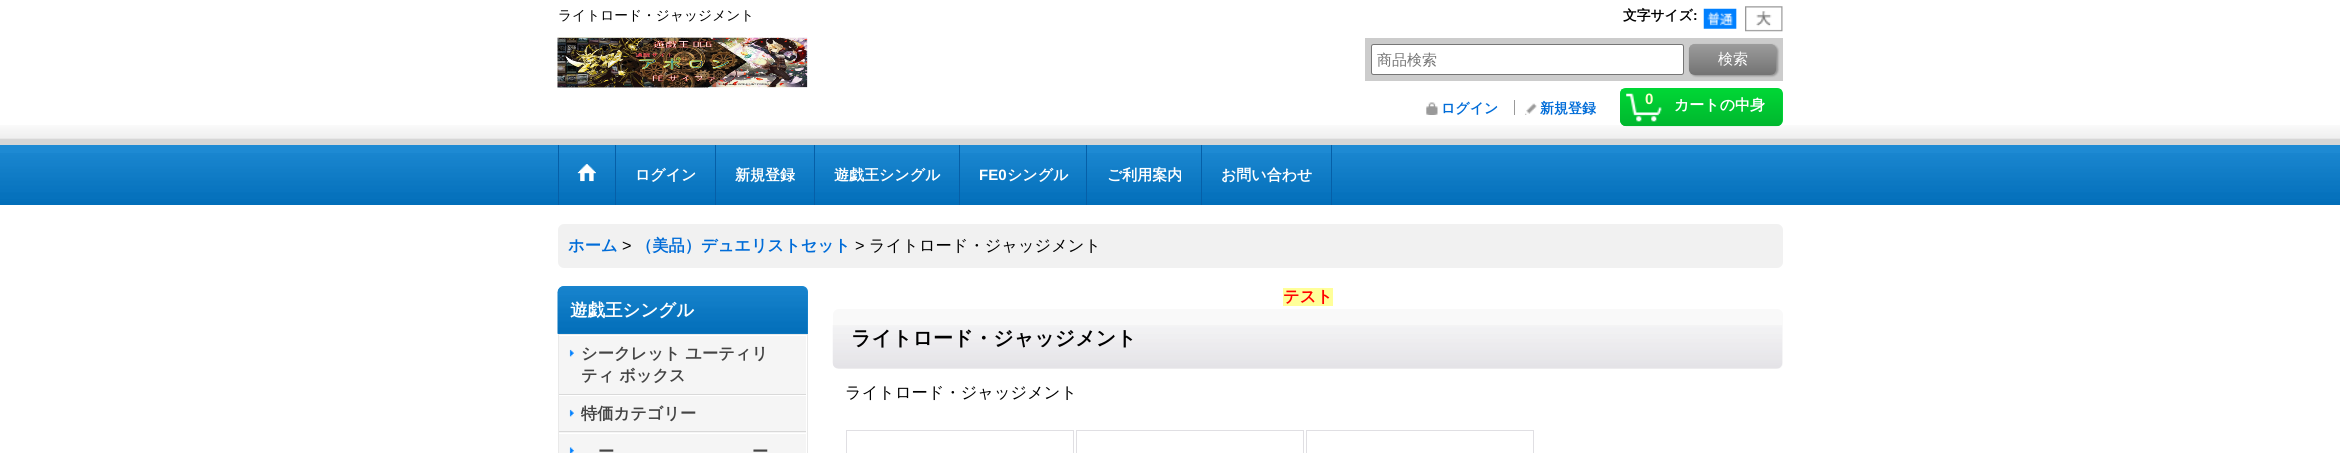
import math
import cairo


def use_color(cr, r, g, b):
  cr.set_source_rgb(r / 255, g / 255, b / 255)

def text(cr, x, y, s, family, size, color, bold=False, italic=False):
  cr.select_font_face(family, cairo.FONT_SLANT_ITALIC if italic else cairo.FONT_SLANT_NORMAL, cairo.FONT_WEIGHT_BOLD if bold else cairo.FONT_WEIGHT_NORMAL)
  cr.set_font_size(size)
  use_color(cr, *color)
  cr.move_to(x, y)
  cr.show_text(s)

def box(cr, x, y, w, h, *color):
  use_color(cr, *color)
  cr.rectangle(x, y, w, h)
  cr.fill()

def round_rect(cr, x, y, w, h, r):
  cr.new_sub_path()
  for i, (u, v) in enumerate([(x + w - r, y + h - r), (x + r, y + h - r), (x + r, y + r), (x + w - r, y + r)]):
    cr.arc(u, v, r, i * math.pi / 2, (i + 1) * math.pi / 2)
  cr.close_path()

def shadow(cr, x, y, w, h, r, blur, alpha):
  cr.push_group_with_content(cairo.CONTENT_ALPHA)
  cr.set_operator(cairo.OPERATOR_SOURCE)
  for i in range(15, -16, -2):
    e = blur * i / 6
    if min(w, h) + 2 * e > 0:
      cr.set_source_rgba(0, 0, 0, alpha * math.erfc((i - 1) / 8.5) / 2)
      round_rect(cr, x - e, y - e, w + 2 * e, h + 2 * e, max(0, min(r + e + blur * .6, min(w, h) / 2 + e)))
      cr.fill()
  cr.mask(cr.pop_group())

def picture(cr, path, x, y, w, h):
  cr.save()
  cr.set_source_surface(cairo.ImageSurface.create_from_png(path), x, y)
  cr.rectangle(x, y, w, h)
  cr.fill()
  cr.restore()

def draw(cr):
  use_color(cr, 255, 255, 255)
  cr.paint()
  picture(cr, "img_01.png", 0, 125, 2340, 20)
  picture(cr, "img_02.png", 1703, 8, 34, 21)
  picture(cr, "img_03.png", 1745, 6, 38, 26)
  picture(cr, "img_04.png", 557, 37, 251, 51)
  box(cr, 1365, 38, 418, 43, 204, 204, 204)
  use_color(cr, 255, 255, 255)
  round_rect(cr, 1371.5, 44.5, 312, 30, 2)
  cr.fill_preserve()
  use_color(cr, 118, 118, 118)
  cr.set_line_width(1)
  cr.stroke()
  use_color(cr, 0, 0, 0)
  shadow(cr, 1690, 45, 88, 31, 6, 1, 0.3)
  picture(cr, "img_05.png", 1688, 44, 88, 31)
  picture(cr, "img_06.png", 1426, 102, 12, 13)
  box(cr, 1514, 100, 1, 15, 153, 153, 153)
  picture(cr, "img_07.png", 1525, 103, 12, 12)
  use_color(cr, 0, 214, 53)
  round_rect(cr, 1620, 88, 163, 38, 6)
  cr.fill()
  picture(cr, "img_08.png", 1620, 88, 163, 39)
  picture(cr, "img_09.png", 1626, 93, 36, 29)
  box(cr, 0, 145, 2340, 8, 30, 138, 211)
  picture(cr, "img_10.png", 0, 153, 2340, 52)
  box(cr, 615, 145, 1, 60, 6, 95, 167)
  box(cr, 558, 145, 1, 60, 6, 95, 167)
  picture(cr, "img_11.png", 577, 164, 19, 18)
  box(cr, 715, 145, 1, 60, 6, 95, 167)
  box(cr, 814, 145, 1, 60, 6, 95, 167)
  box(cr, 959, 145, 1, 60, 6, 95, 167)
  box(cr, 1086, 145, 1, 60, 6, 95, 167)
  box(cr, 1201, 145, 1, 60, 6, 95, 167)
  box(cr, 1331, 145, 1, 60, 6, 95, 167)
  use_color(cr, 241, 241, 241)
  round_rect(cr, 558, 224, 1225, 44, 6)
  cr.fill()
  use_color(cr, 30, 138, 211)
  cr.new_path()
  cr.move_to(564, 286)
  cr.line_to(802, 286)
  cr.curve_to(805.5, 286, 808, 288.5, 808, 292)
  cr.line_to(808, 334)
  cr.line_to(558, 334)
  cr.line_to(558, 292)
  cr.curve_to(558, 288.5, 560.5, 286, 564, 286)
  cr.close_path()
  cr.fill()
  picture(cr, "img_12.png", 557, 286, 251, 48)
  cr.rectangle(558.5, 334.5, 249, 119)
  use_color(cr, 233, 233, 233)
  cr.stroke()
  box(cr, 559, 336, 247, 58, 245, 245, 245)
  box(cr, 559, 394, 247, 1, 217, 217, 217)
  picture(cr, "img_13.png", 569, 349, 5, 8)
  box(cr, 559, 396, 247, 37, 245, 245, 245)
  box(cr, 559, 431, 247, 1, 217, 217, 217)
  picture(cr, "img_13.png", 569, 409, 5, 8)
  box(cr, 559, 434, 247, 19, 245, 245, 245)
  picture(cr, "img_14.png", 569, 447, 5, 6)
  box(cr, 1283, 288, 50, 18, 255, 255, 153)
  use_color(cr, 249, 249, 249)
  round_rect(cr, 833, 309, 950, 60, 6)
  cr.fill()
  picture(cr, "img_15.png", 832, 325, 951, 44)
  cr.rectangle(846.5, 430.5, 227, 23)
  use_color(cr, 224, 223, 227)
  cr.stroke()
  cr.rectangle(1076.5, 430.5, 227, 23)
  cr.stroke()
  cr.rectangle(1306.5, 430.5, 227, 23)
  cr.stroke()
  text(cr, 558, 20, "ライトロード・ジャッジメント", "WenQuanYi Zen Hei Medium", 13.75, (0, 0, 0))
  text(cr, 1623, 20, "文字サイズ", "WenQuanYi Zen Hei", 13.75, (0, 0, 0), bold=True)
  text(cr, 1693, 20, ":", "Liberation Sans", 13.75, (0, 0, 0), bold=True)
  text(cr, 1377, 65, "商品検索", "WenQuanYi Zen Hei Medium", 15, (117, 117, 117))
  text(cr, 1718, 64, "検索", "WenQuanYi Zen Hei Medium", 15, (255, 255, 255))
  text(cr, 1441, 113, "ログイン", "WenQuanYi Zen Hei", 14, (0, 108, 216), bold=True)
  text(cr, 1540, 113, "新規登録", "WenQuanYi Zen Hei", 14, (0, 108, 216), bold=True)
  text(cr, 1645, 104, "0", "Liberation Sans", 15, (255, 255, 204), bold=True)
  text(cr, 1674, 110, "カートの中身", "WenQuanYi Zen Hei", 15, (255, 255, 255), bold=True)
  text(cr, 635, 180, "ログイン", "WenQuanYi Zen Hei", 15, (255, 255, 255), bold=True)
  text(cr, 735, 180, "新規登録", "WenQuanYi Zen Hei", 15, (255, 255, 255), bold=True)
  text(cr, 834, 180, "遊戯王シングル", "WenQuanYi Zen Hei", 15, (255, 255, 255), bold=True)
  text(cr, 979, 180, "FE0", "Liberation Sans", 15, (255, 255, 255), bold=True)
  text(cr, 1007, 180, "シングル", "WenQuanYi Zen Hei", 15, (255, 255, 255), bold=True)
  text(cr, 1107, 180, "ご利用案内", "WenQuanYi Zen Hei", 15, (255, 255, 255), bold=True)
  text(cr, 1221, 180, "お問い合わせ", "WenQuanYi Zen Hei", 15, (255, 255, 255), bold=True)
  text(cr, 568, 251, "ホーム", "WenQuanYi Zen Hei", 16.25, (0, 108, 216), bold=True)
  text(cr, 622, 251, ">", "Liberation Sans", 16.25, (0, 0, 0))
  text(cr, 636, 251, "（美品）デュエリストセット", "WenQuanYi Zen Hei", 16.25, (0, 108, 216), bold=True)
  text(cr, 855, 251, ">", "Liberation Sans", 16.25, (0, 0, 0))
  text(cr, 869, 251, "ライトロード・ジャッジメント", "WenQuanYi Zen Hei Medium", 16.25, (0, 0, 0))
  text(cr, 570, 316, "遊戯王シングル", "WenQuanYi Zen Hei", 17.5, (255, 255, 255), bold=True)
  text(cr, 581, 359, "シークレット ユーティリ", "WenQuanYi Zen Hei", 16.25, (68, 68, 68), bold=True)
  text(cr, 581, 381, "ティ ボックス", "WenQuanYi Zen Hei", 16.25, (68, 68, 68), bold=True)
  text(cr, 581, 419, "特価カテゴリー", "WenQuanYi Zen Hei", 16.25, (68, 68, 68), bold=True)
  text(cr, 598, 457, "ー", "WenQuanYi Zen Hei", 16.25, (68, 68, 68), bold=True)
  text(cr, 752, 457, "ー", "WenQuanYi Zen Hei", 16.25, (68, 68, 68), bold=True)
  text(cr, 1283, 302, "テスト", "WenQuanYi Zen Hei", 16.25, (255, 0, 0), bold=True)
  text(cr, 851, 345, "ライトロード・ジャッジメント", "WenQuanYi Zen Hei", 20, (0, 0, 0), bold=True)
  text(cr, 845, 398, "ライトロード・ジャッジメント", "WenQuanYi Zen Hei Medium", 16.25, (0, 0, 0))


surface = cairo.ImageSurface(cairo.FORMAT_RGB24, 2340, 453)
cr = cairo.Context(surface)
options = cairo.FontOptions()
options.set_hint_metrics(cairo.HINT_METRICS_OFF)
options.set_hint_style(cairo.HINT_STYLE_NONE)
cr.set_font_options(options)
cr.set_miter_limit(4)
draw(cr)
surface.write_to_png("out.png")
